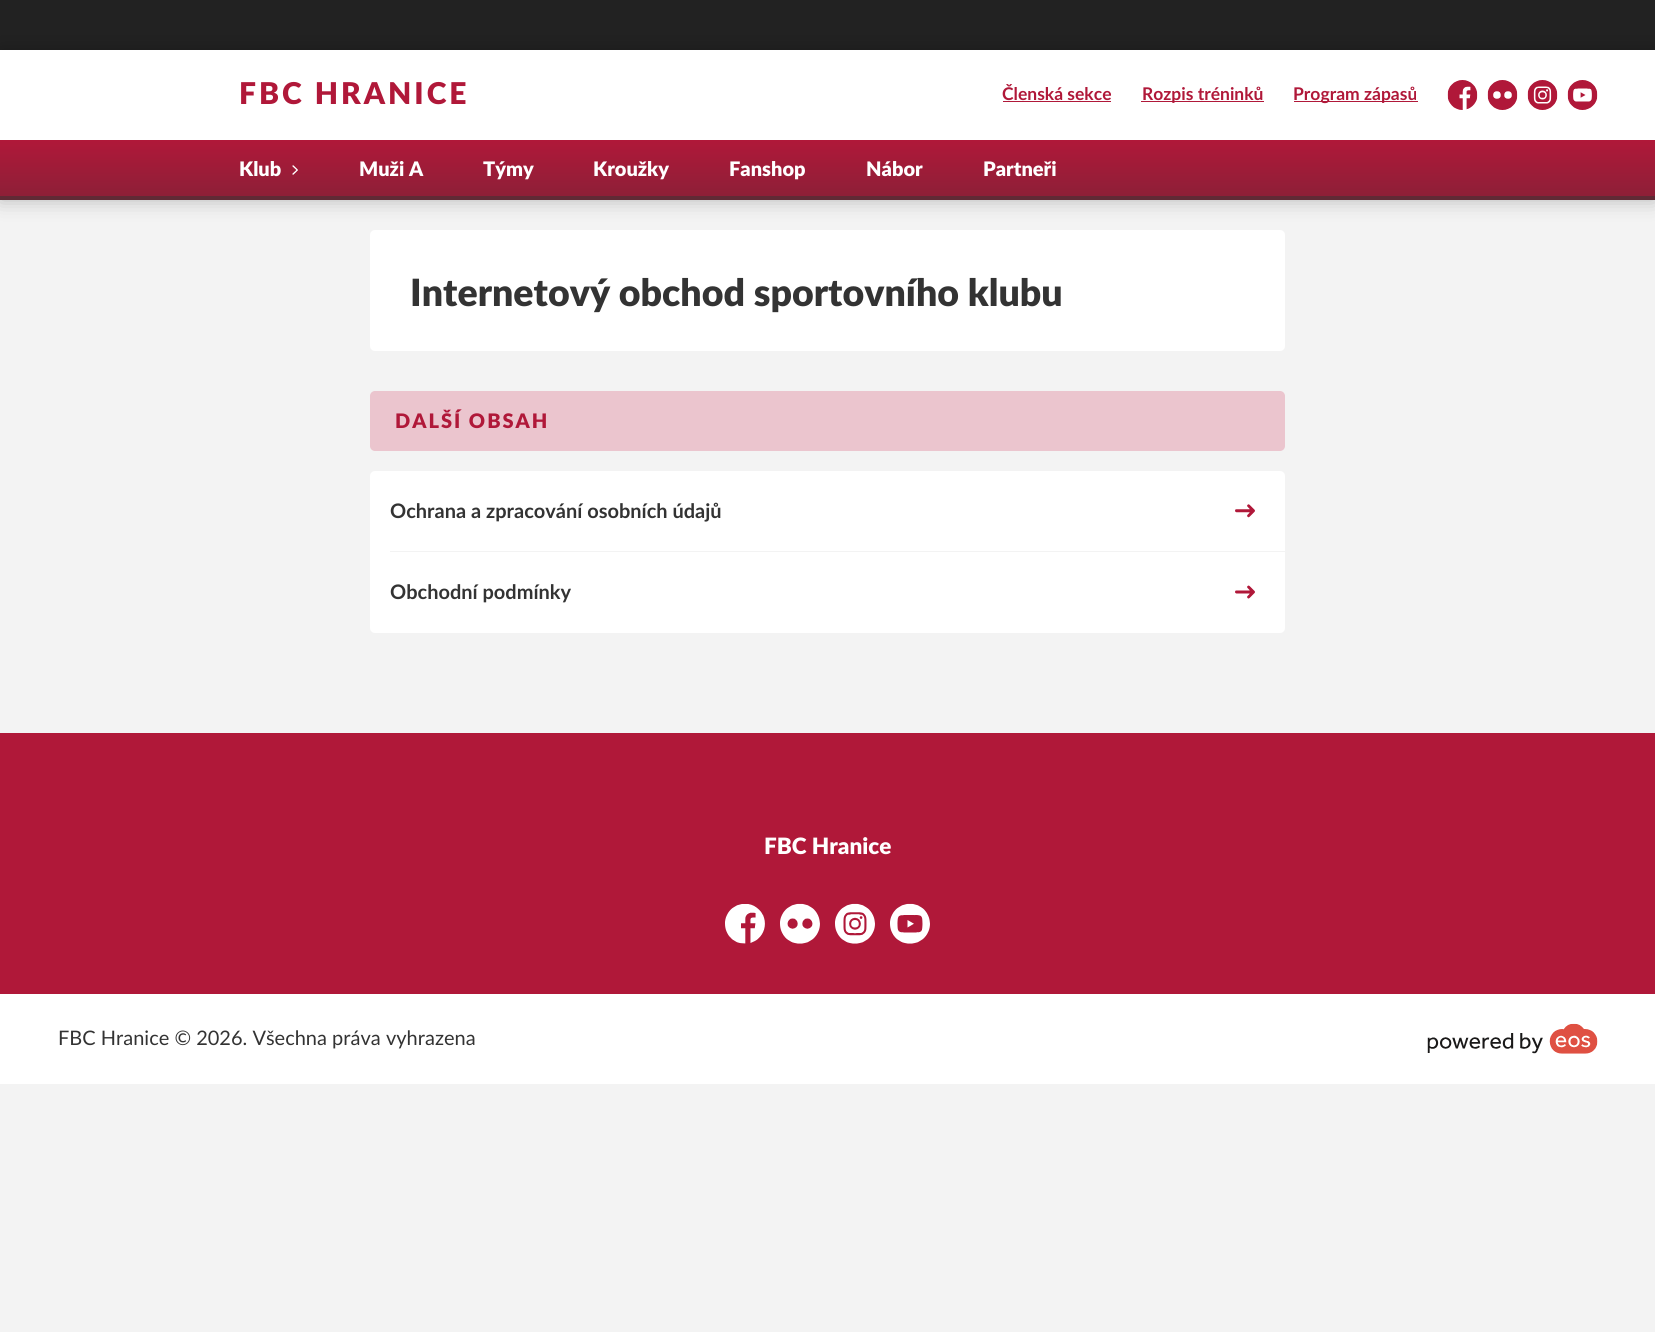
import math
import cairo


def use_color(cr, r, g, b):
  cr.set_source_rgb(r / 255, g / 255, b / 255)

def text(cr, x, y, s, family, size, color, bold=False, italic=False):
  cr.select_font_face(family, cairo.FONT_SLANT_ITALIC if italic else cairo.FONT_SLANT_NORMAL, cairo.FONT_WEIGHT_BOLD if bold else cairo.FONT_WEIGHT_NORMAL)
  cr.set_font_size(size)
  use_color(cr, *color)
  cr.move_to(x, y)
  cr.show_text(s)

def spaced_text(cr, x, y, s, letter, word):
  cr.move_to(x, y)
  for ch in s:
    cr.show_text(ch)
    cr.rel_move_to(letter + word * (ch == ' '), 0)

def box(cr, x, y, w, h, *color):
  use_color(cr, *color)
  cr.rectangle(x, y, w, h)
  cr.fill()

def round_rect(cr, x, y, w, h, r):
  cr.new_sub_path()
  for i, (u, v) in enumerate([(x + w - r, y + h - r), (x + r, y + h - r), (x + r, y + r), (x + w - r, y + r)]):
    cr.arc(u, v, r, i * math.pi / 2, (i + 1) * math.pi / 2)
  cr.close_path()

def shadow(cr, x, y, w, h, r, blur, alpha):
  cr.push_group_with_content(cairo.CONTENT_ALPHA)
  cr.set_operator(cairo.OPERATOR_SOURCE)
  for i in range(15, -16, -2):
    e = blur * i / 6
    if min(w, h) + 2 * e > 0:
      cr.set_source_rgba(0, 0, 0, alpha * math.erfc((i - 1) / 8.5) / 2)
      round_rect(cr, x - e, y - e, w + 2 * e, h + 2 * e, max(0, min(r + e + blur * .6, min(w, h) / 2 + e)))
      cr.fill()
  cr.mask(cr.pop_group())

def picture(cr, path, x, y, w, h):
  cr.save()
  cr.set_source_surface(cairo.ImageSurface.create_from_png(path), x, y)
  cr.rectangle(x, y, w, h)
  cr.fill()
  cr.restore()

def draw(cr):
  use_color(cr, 243, 243, 243)
  cr.paint()
  box(cr, 0, 0, 1655, 50, 34, 34, 34)
  use_color(cr, 255, 255, 255)
  round_rect(cr, 370, 230, 915, 121, 5)
  cr.fill()
  use_color(cr, 0, 0, 0)
  shadow(cr, 0, 50, 1655, 150, 0, 10, 0.25)
  box(cr, 0, 50, 1655, 90, 255, 255, 255)
  box(cr, 1003, 101, 108, 1, 176, 24, 57)
  box(cr, 1141, 101, 123, 1, 176, 24, 57)
  box(cr, 1294, 101, 124, 1, 176, 24, 57)
  picture(cr, "img_01.png", 1447, 80, 31, 30)
  picture(cr, "img_02.png", 1487, 80, 31, 30)
  picture(cr, "img_03.png", 1527, 80, 31, 30)
  picture(cr, "img_04.png", 1567, 80, 31, 30)
  gradient = cairo.LinearGradient(828, 140, 828, 200)
  gradient.add_color_stop_rgba(0, 0.69, 0.094, 0.224, 1)
  gradient.add_color_stop_rgba(1, 0.545, 0.125, 0.216, 1)
  cr.set_source(gradient)
  cr.rectangle(0, 140, 1655, 56)
  cr.fill()
  picture(cr, "img_05.png", 292, 165, 6, 10)
  box(cr, 0, 196, 1655, 4, 96, 42, 53)
  use_color(cr, 235, 197, 206)
  round_rect(cr, 370, 391, 915, 60, 5)
  cr.fill()
  use_color(cr, 255, 255, 255)
  round_rect(cr, 370, 471, 915, 162, 5)
  cr.fill()
  picture(cr, "img_06.png", 1235, 504, 20, 14)
  box(cr, 390, 551, 895, 1, 243, 243, 243)
  picture(cr, "img_07.png", 1235, 585, 20, 14)
  box(cr, 0, 733, 1655, 261, 176, 24, 57)
  picture(cr, "img_08.png", 725, 904, 40, 40)
  picture(cr, "img_09.png", 780, 903, 40, 41)
  picture(cr, "img_10.png", 835, 903, 40, 41)
  picture(cr, "img_11.png", 890, 903, 40, 41)
  box(cr, 0, 994, 1655, 90, 255, 255, 255)
  picture(cr, "img_12.png", 1427, 1023, 171, 31)
  cr.select_font_face("Lato Black")
  cr.set_font_size(30)
  use_color(cr, 176, 24, 57)
  spaced_text(cr, 239, 104, "FBC HRANICE", 3, 0)
  text(cr, 1002, 100, "Členská sekce", "Lato", 17.5, (176, 24, 57), bold=True)
  text(cr, 1142, 100, "Rozpis tréninků", "Lato", 17.5, (176, 24, 57), bold=True)
  text(cr, 1293, 100, "Program zápasů", "Lato", 17.5, (176, 24, 57), bold=True)
  text(cr, 239, 176, "Klub", "Lato Black", 20, (255, 255, 255))
  text(cr, 359, 176, "Muži A", "Lato Black", 20, (255, 255, 255))
  text(cr, 483, 176, "Týmy", "Lato Black", 20, (255, 255, 255))
  text(cr, 593, 176, "Kroužky", "Lato Black", 20, (255, 255, 255))
  text(cr, 729, 176, "Fanshop", "Lato Black", 20, (255, 255, 255))
  text(cr, 866, 176, "Nábor", "Lato Black", 20, (255, 255, 255))
  text(cr, 983, 176, "Partneři", "Lato Black", 20, (255, 255, 255))
  text(cr, 410, 306, "Internetový obchod sportovního klubu", "Lato Black", 37.5, (51, 51, 51))
  cr.set_font_size(20)
  use_color(cr, 176, 24, 57)
  spaced_text(cr, 395, 428, "DALŠÍ OBSAH", 2, 0)
  text(cr, 390, 518, "Ochrana a zpracování osobních údajů", "Lato", 20, (51, 51, 51), bold=True)
  text(cr, 390, 599, "Obchodní podmínky", "Lato", 20, (51, 51, 51), bold=True)
  text(cr, 764, 854, "FBC Hranice", "Lato Black", 22.5, (255, 255, 255))
  text(cr, 58, 1045, "FBC Hranice © 2026. Všechna práva vyhrazena", "Lato", 20, (51, 51, 51))


surface = cairo.ImageSurface(cairo.FORMAT_RGB24, 1655, 1332)
cr = cairo.Context(surface)
options = cairo.FontOptions()
options.set_hint_metrics(cairo.HINT_METRICS_OFF)
options.set_hint_style(cairo.HINT_STYLE_NONE)
cr.set_font_options(options)
cr.set_miter_limit(4)
draw(cr)
surface.write_to_png("out.png")
